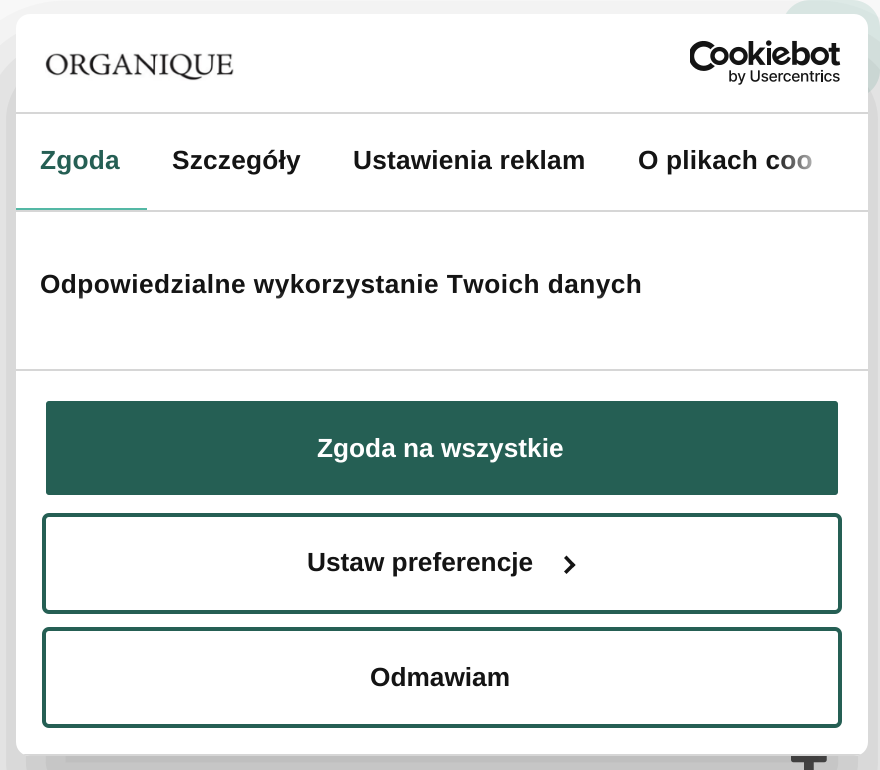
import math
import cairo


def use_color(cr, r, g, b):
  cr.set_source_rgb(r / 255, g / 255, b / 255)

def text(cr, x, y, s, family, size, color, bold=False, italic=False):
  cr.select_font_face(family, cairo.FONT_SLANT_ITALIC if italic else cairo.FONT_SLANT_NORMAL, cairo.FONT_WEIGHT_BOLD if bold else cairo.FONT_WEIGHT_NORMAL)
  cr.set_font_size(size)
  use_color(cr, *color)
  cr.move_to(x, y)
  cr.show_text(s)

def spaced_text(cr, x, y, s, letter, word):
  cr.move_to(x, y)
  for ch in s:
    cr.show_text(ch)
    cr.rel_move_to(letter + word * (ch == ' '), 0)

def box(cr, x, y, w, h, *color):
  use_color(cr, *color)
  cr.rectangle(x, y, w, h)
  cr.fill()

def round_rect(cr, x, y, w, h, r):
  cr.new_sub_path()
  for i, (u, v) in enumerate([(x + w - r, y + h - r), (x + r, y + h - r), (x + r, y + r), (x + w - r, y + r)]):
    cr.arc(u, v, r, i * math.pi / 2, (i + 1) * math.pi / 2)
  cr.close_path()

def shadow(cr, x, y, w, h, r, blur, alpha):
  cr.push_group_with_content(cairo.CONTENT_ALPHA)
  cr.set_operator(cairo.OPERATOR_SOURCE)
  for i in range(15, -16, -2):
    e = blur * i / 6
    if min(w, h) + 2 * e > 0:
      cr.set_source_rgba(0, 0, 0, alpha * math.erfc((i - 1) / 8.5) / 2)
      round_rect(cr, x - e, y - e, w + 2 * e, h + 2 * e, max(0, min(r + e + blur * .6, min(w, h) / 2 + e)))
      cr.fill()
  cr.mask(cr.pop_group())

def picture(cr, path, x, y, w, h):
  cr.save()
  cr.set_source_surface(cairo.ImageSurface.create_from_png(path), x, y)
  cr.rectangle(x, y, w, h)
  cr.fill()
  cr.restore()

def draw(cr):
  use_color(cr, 255, 255, 255)
  cr.paint()
  use_color(cr, 227, 240, 237)
  round_rect(cr, 782, 0, 98, 98, 28)
  cr.fill()
  picture(cr, "img_03.png", 791, 756, 36, 14)
  use_color(cr, 0, 0, 0)
  shadow(cr, 16, 70, 852, 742, 14, 59.5, 0.3)
  use_color(cr, 255, 255, 255)
  round_rect(cr, 16, 14, 852, 742, 14)
  cr.fill()
  box(cr, 16, 112, 852, 2, 214, 214, 214)
  picture(cr, "img_01.png", 45, 53, 189, 28)
  picture(cr, "img_02.png", 690, 40, 151, 45)
  box(cr, 16, 210, 852, 2, 214, 214, 214)
  box(cr, 16, 208, 131, 2, 84, 184, 165)
  box(cr, 16, 369, 852, 2, 214, 214, 214)
  cr.save()
  round_rect(cr, 16, 14, 852, 742, 14)
  cr.clip()
  box(cr, 16, 754, 852, 2, 214, 214, 214)
  cr.restore()
  use_color(cr, 37, 95, 84)
  round_rect(cr, 44, 399, 796, 98, 5)
  cr.fill_preserve()
  use_color(cr, 255, 255, 255)
  cr.set_line_width(4)
  cr.stroke()
  round_rect(cr, 44, 515, 796, 97, 5)
  use_color(cr, 37, 95, 84)
  cr.stroke()
  use_color(cr, 20, 20, 20)
  cr.new_path()
  cr.move_to(566.5, 555.5)
  cr.line_to(575.5, 565)
  cr.line_to(573, 567.5)
  cr.line_to(564, 558)
  cr.close_path()
  cr.fill()
  cr.new_path()
  cr.move_to(573, 562.5)
  cr.line_to(575.5, 565)
  cr.line_to(566.5, 574)
  cr.line_to(564, 571.5)
  cr.close_path()
  cr.fill()
  round_rect(cr, 44, 629, 796, 97, 5)
  use_color(cr, 37, 95, 84)
  cr.stroke()
  cr.select_font_face("Liberation Sans", cairo.FONT_SLANT_NORMAL, cairo.FONT_WEIGHT_BOLD)
  cr.set_font_size(26.25)
  spaced_text(cr, 40, 169, "Zgoda", 0.2, 0)
  use_color(cr, 20, 20, 20)
  spaced_text(cr, 172, 169, "Szczegóły", 0.2, 0)
  spaced_text(cr, 353, 169, "Ustawienia reklam", 0.2, 0)
  spaced_text(cr, 638, 169, "O plikach coo", 0.2, 0)
  gradient = cairo.LinearGradient(867, 162, 774, 162)
  gradient.add_color_stop_rgba(0, 1, 1, 1, 1)
  gradient.add_color_stop_rgba(0.5, 1, 1, 1, 0.8)
  gradient.add_color_stop_rgba(1, 1, 1, 1, 0)
  cr.set_source(gradient)
  cr.rectangle(775, 154, 37, 16)
  cr.fill()
  use_color(cr, 20, 20, 20)
  spaced_text(cr, 40, 293, "Odpowiedzialne wykorzystanie Twoich danych", 0.45, 0)
  gradient = cairo.LinearGradient(430, 369, 430, 291)
  gradient.add_color_stop_rgba(0, 1, 1, 1, 1)
  gradient.add_color_stop_rgba(0.5, 1, 1, 1, 0.8)
  gradient.add_color_stop_rgba(1, 1, 1, 1, 0)
  cr.set_source(gradient)
  cr.rectangle(46, 292, 594, 7)
  cr.fill()
  text(cr, 317, 457, "Zgoda na wszystkie", "Liberation Sans", 26.25, (255, 255, 255), bold=True)
  text(cr, 307, 571, "Ustaw preferencje", "Liberation Sans", 26.25, (20, 20, 20), bold=True)
  text(cr, 370, 686, "Odmawiam", "Liberation Sans", 26.25, (20, 20, 20), bold=True)


surface = cairo.ImageSurface(cairo.FORMAT_RGB24, 880, 770)
cr = cairo.Context(surface)
options = cairo.FontOptions()
options.set_hint_metrics(cairo.HINT_METRICS_OFF)
options.set_hint_style(cairo.HINT_STYLE_NONE)
cr.set_font_options(options)
cr.set_miter_limit(4)
draw(cr)
surface.write_to_png("out.png")
